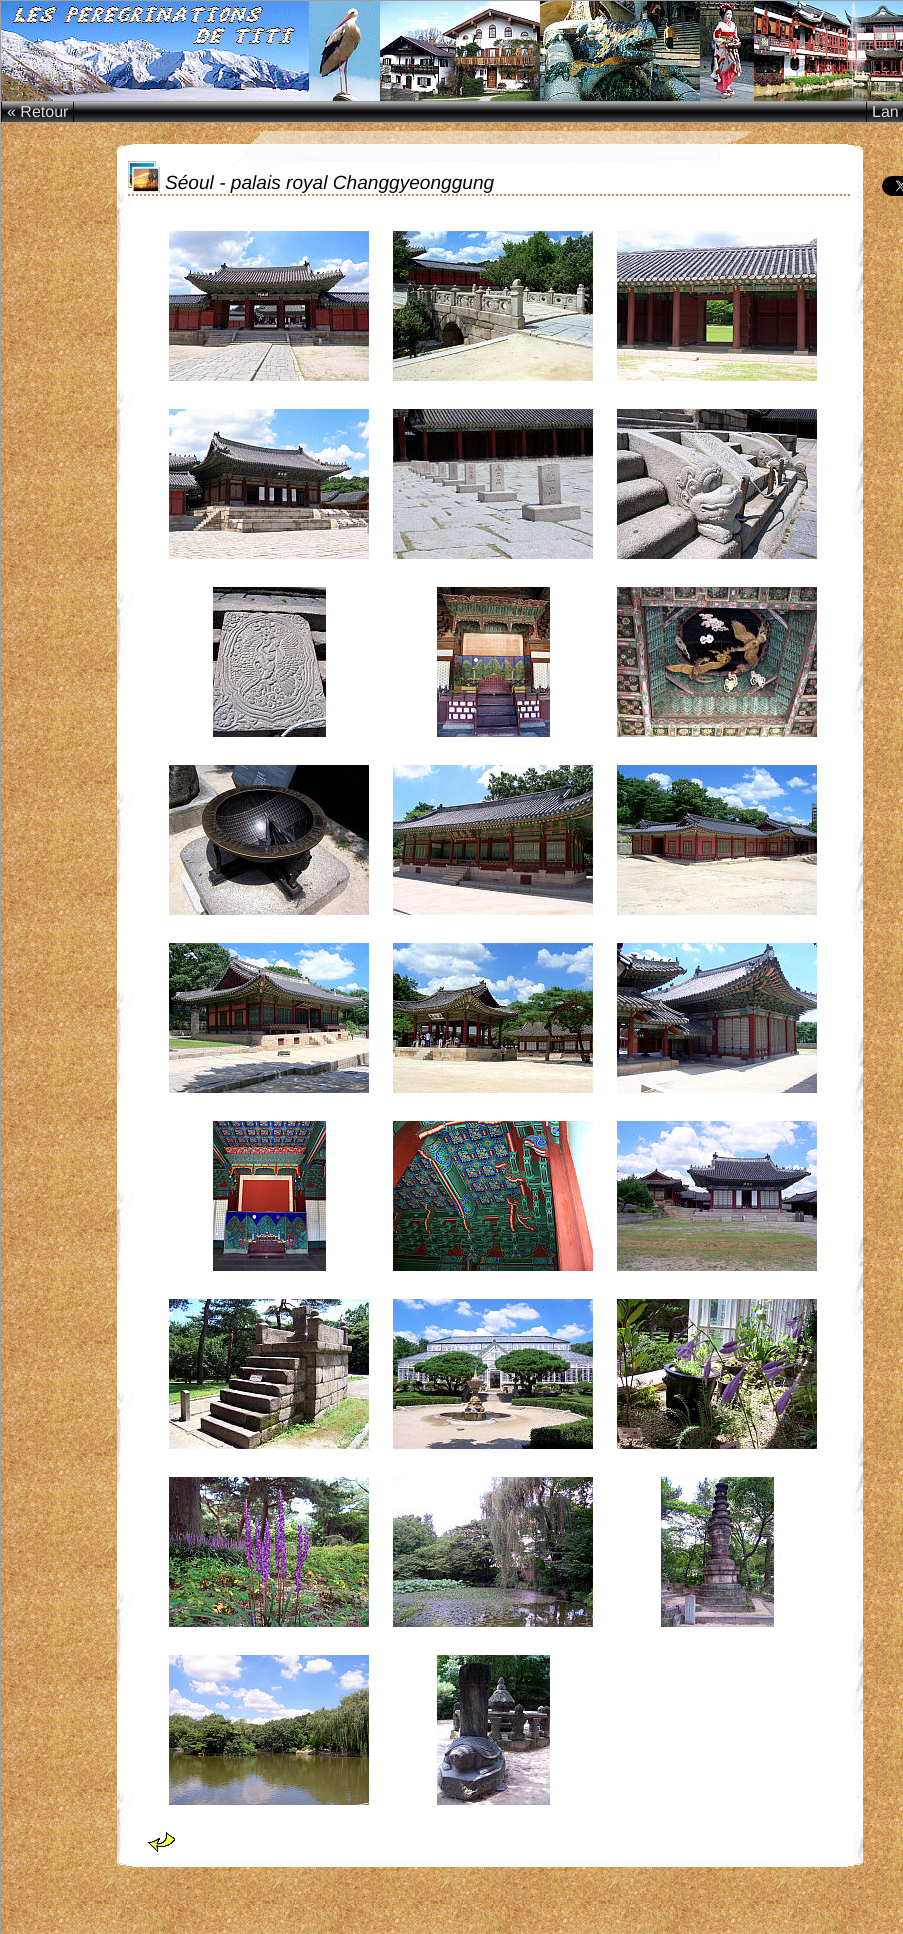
import math
import cairo


def use_color(cr, r, g, b):
  cr.set_source_rgb(r / 255, g / 255, b / 255)

def text(cr, x, y, s, family, size, color, bold=False, italic=False):
  cr.select_font_face(family, cairo.FONT_SLANT_ITALIC if italic else cairo.FONT_SLANT_NORMAL, cairo.FONT_WEIGHT_BOLD if bold else cairo.FONT_WEIGHT_NORMAL)
  cr.set_font_size(size)
  use_color(cr, *color)
  cr.move_to(x, y)
  cr.show_text(s)

def box(cr, x, y, w, h, *color):
  use_color(cr, *color)
  cr.rectangle(x, y, w, h)
  cr.fill()

def picture(cr, path, x, y, w, h):
  cr.save()
  cr.set_source_surface(cairo.ImageSurface.create_from_png(path), x, y)
  cr.rectangle(x, y, w, h)
  cr.fill()
  cr.restore()

def draw(cr):
  use_color(cr, 255, 255, 255)
  cr.paint()
  picture(cr, "img_01.png", 1, 123, 902, 1811)
  box(cr, 0, 0, 1, 1934, 160, 160, 160)
  box(cr, 1, 0, 902, 1, 160, 160, 160)
  picture(cr, "img_02.png", 1, 1, 902, 100)
  picture(cr, "img_03.png", 13, 6, 282, 38)
  box(cr, 1, 101, 902, 1, 160, 160, 160)
  picture(cr, "img_04.png", 74, 102, 792, 20)
  box(cr, 73, 102, 1, 20, 0, 0, 0)
  box(cr, 1, 102, 1, 20, 0, 0, 0)
  picture(cr, "img_05.png", 2, 102, 71, 20)
  box(cr, 866, 102, 1, 20, 0, 0, 0)
  picture(cr, "img_06.png", 867, 102, 36, 20)
  box(cr, 1, 122, 902, 1, 160, 160, 160)
  picture(cr, "img_07.png", 117, 131, 746, 30)
  picture(cr, "img_08.png", 117, 161, 746, 1700)
  cr.new_path()
  cr.move_to(128, 195)
  cr.line_to(852, 195)
  use_color(cr, 205, 133, 63)
  cr.set_dash([2, 2])
  cr.stroke()
  picture(cr, "img_09.png", 128, 161, 32, 32)
  picture(cr, "img_10.png", 169, 231, 200, 150)
  picture(cr, "img_11.png", 393, 231, 200, 150)
  picture(cr, "img_12.png", 617, 231, 200, 150)
  picture(cr, "img_13.png", 169, 409, 200, 150)
  picture(cr, "img_14.png", 393, 409, 200, 150)
  picture(cr, "img_15.png", 617, 409, 200, 150)
  picture(cr, "img_16.png", 213, 587, 113, 150)
  picture(cr, "img_17.png", 437, 587, 113, 150)
  picture(cr, "img_18.png", 617, 587, 200, 150)
  picture(cr, "img_19.png", 169, 765, 200, 150)
  picture(cr, "img_20.png", 393, 765, 200, 150)
  picture(cr, "img_21.png", 617, 765, 200, 150)
  picture(cr, "img_22.png", 169, 943, 200, 150)
  picture(cr, "img_23.png", 393, 943, 200, 150)
  picture(cr, "img_24.png", 617, 943, 200, 150)
  picture(cr, "img_25.png", 213, 1121, 113, 150)
  picture(cr, "img_26.png", 393, 1121, 200, 150)
  picture(cr, "img_27.png", 617, 1121, 200, 150)
  picture(cr, "img_28.png", 169, 1299, 200, 150)
  picture(cr, "img_29.png", 393, 1299, 200, 150)
  picture(cr, "img_30.png", 617, 1299, 200, 150)
  picture(cr, "img_31.png", 169, 1477, 200, 150)
  picture(cr, "img_32.png", 393, 1477, 200, 150)
  picture(cr, "img_33.png", 661, 1477, 113, 150)
  picture(cr, "img_34.png", 169, 1655, 200, 150)
  picture(cr, "img_35.png", 437, 1655, 113, 150)
  picture(cr, "img_36.png", 148, 1832, 27, 20)
  picture(cr, "img_37.png", 117, 1861, 746, 6)
  picture(cr, "img_38.png", 882, 176, 21, 20)
  text(cr, 7, 117, "« Retour", "Liberation Sans", 16, (220, 220, 220))
  text(cr, 872, 117, "Lan", "Liberation Sans", 16, (220, 220, 220))
  text(cr, 165, 189, "Séoul - palais royal Changgyeonggung", "Liberation Sans", 19.1, (0, 0, 0), italic=True)


surface = cairo.ImageSurface(cairo.FORMAT_RGB24, 903, 1934)
cr = cairo.Context(surface)
options = cairo.FontOptions()
options.set_hint_metrics(cairo.HINT_METRICS_OFF)
options.set_hint_style(cairo.HINT_STYLE_NONE)
cr.set_font_options(options)
cr.set_miter_limit(4)
draw(cr)
surface.write_to_png("out.png")
